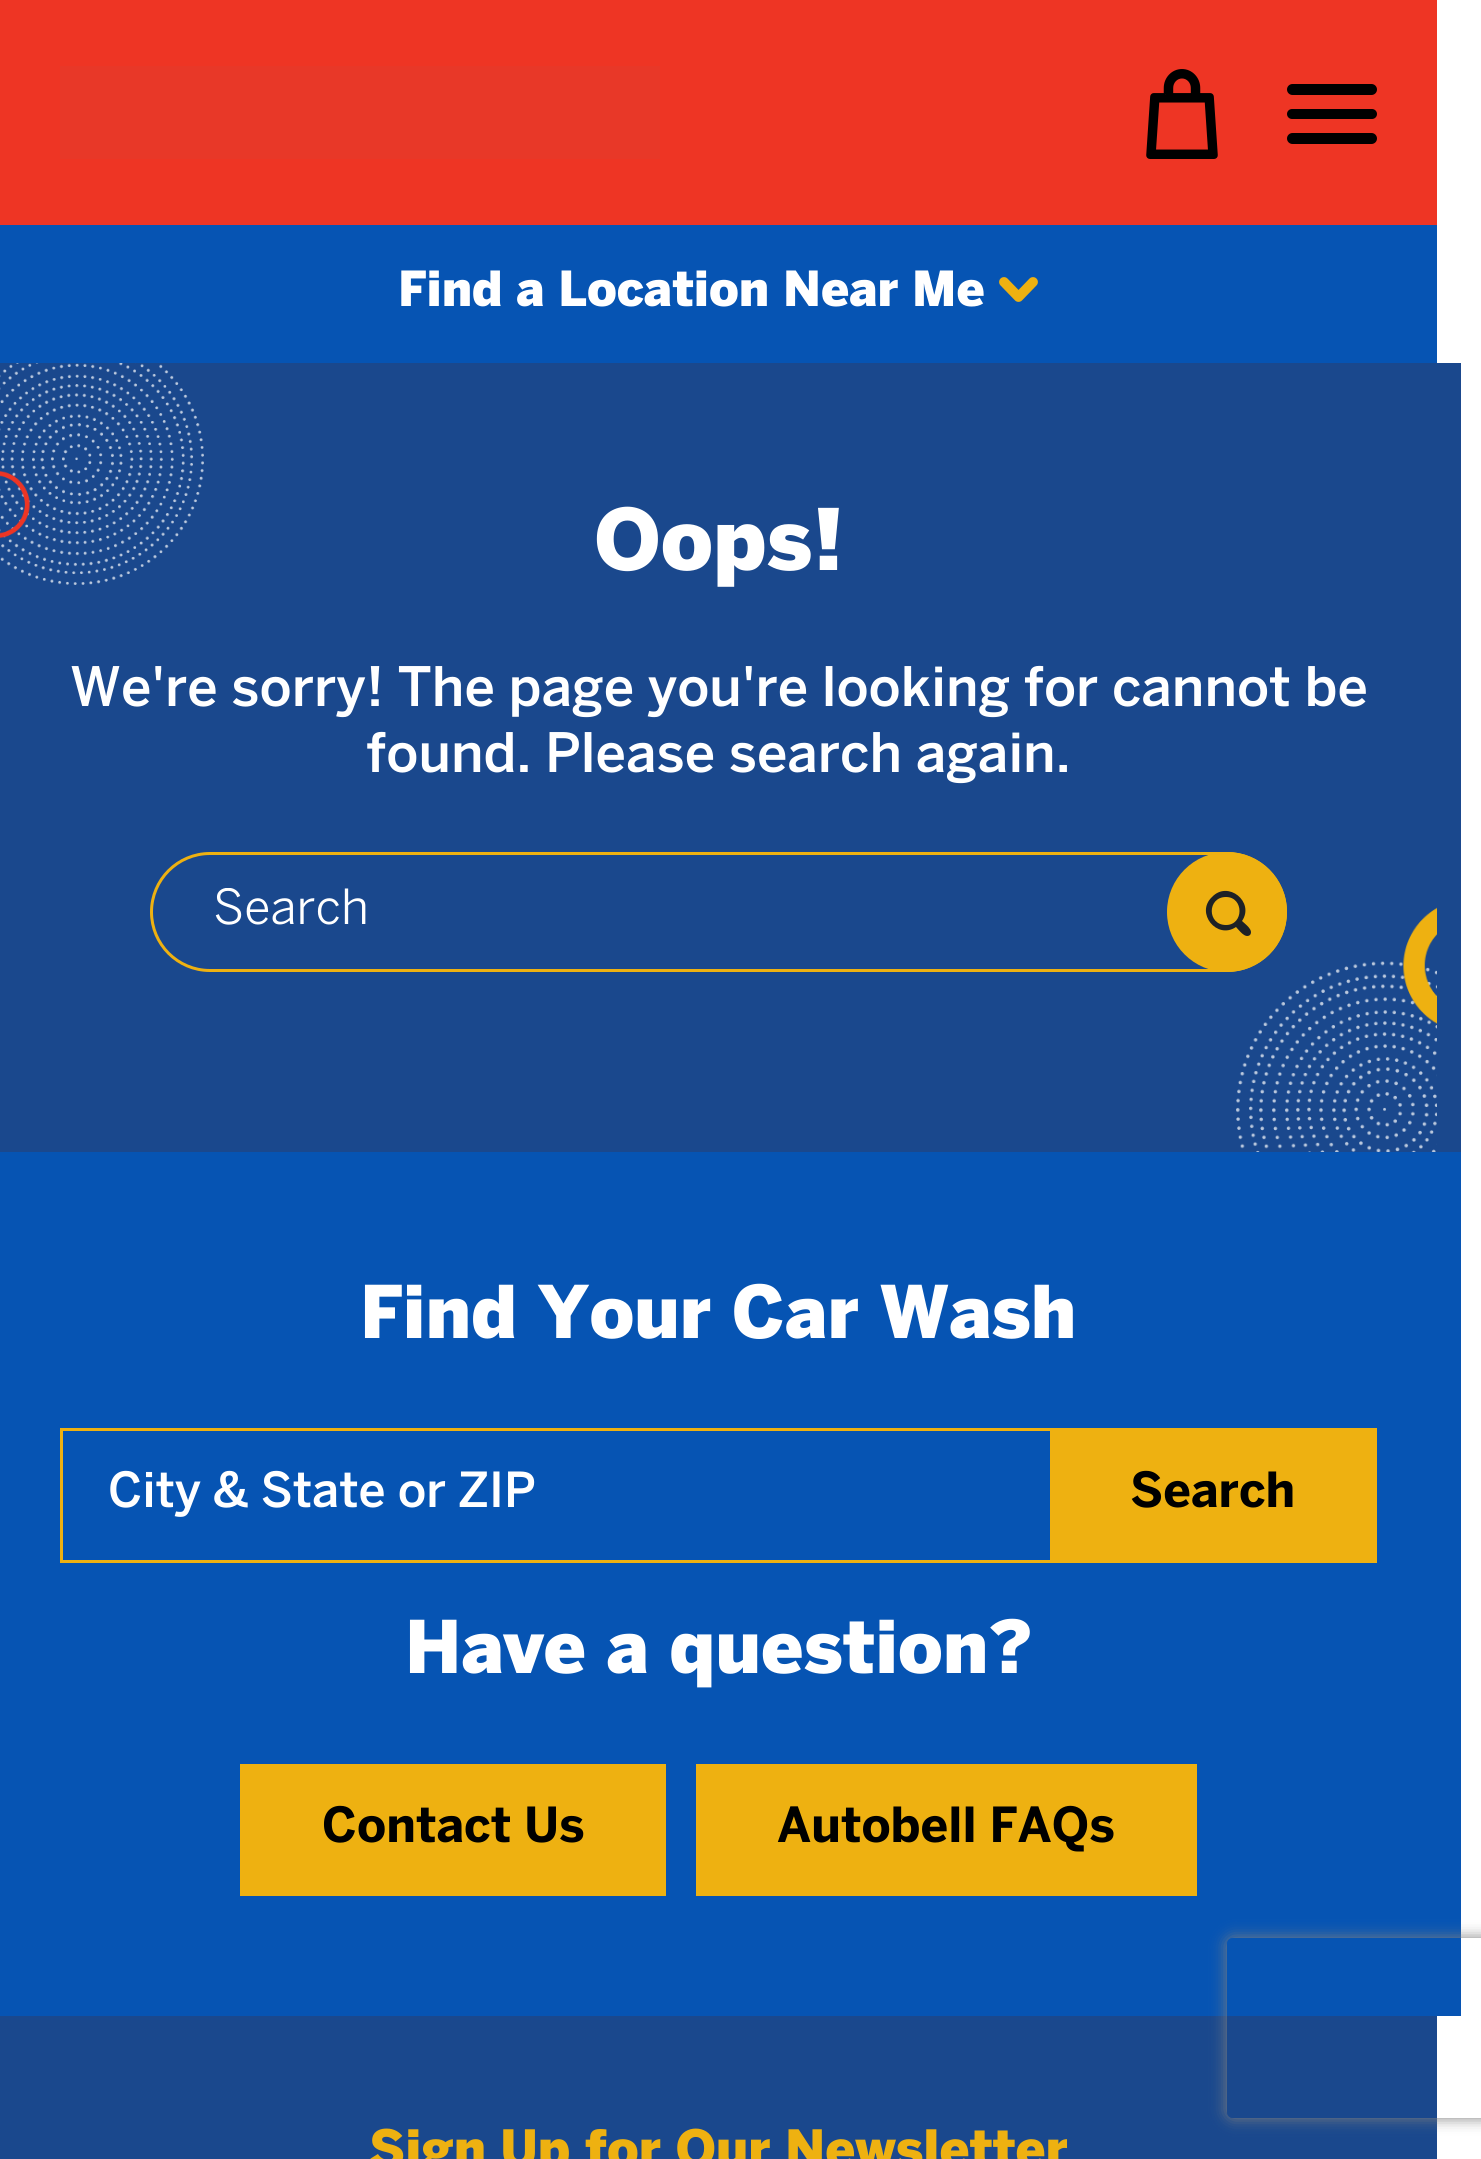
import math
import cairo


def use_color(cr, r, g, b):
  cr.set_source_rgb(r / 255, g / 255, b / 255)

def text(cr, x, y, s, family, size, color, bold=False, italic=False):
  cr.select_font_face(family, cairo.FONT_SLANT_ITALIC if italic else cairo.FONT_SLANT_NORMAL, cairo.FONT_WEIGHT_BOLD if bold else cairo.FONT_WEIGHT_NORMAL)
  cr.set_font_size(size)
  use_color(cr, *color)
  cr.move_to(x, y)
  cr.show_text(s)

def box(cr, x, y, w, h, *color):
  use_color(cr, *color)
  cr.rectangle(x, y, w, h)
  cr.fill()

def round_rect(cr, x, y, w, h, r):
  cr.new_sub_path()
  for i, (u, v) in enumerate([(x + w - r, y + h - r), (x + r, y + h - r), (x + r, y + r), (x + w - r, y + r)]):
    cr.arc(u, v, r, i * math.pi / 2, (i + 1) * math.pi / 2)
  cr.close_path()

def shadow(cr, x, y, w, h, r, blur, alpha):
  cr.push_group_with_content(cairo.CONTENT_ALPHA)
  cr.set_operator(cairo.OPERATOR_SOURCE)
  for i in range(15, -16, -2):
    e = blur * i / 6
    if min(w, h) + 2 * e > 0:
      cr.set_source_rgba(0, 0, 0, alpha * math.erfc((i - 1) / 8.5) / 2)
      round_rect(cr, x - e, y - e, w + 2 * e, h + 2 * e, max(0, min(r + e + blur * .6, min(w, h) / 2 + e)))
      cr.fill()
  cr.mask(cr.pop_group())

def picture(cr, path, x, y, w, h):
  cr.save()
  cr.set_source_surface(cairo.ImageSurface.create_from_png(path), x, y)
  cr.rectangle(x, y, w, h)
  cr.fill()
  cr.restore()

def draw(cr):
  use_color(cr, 255, 255, 255)
  cr.paint()
  box(cr, 0, 0, 1437, 225, 238, 53, 36)
  box(cr, 60, 66, 600, 93, 232, 56, 40)
  picture(cr, "img_01.png", 1146, 69, 72, 90)
  use_color(cr, 0, 0, 0)
  round_rect(cr, 1287, 84, 90, 11, 5.5)
  cr.fill()
  round_rect(cr, 1287, 109, 90, 10, 5)
  cr.fill()
  round_rect(cr, 1287, 133, 90, 11, 5.5)
  cr.fill()
  box(cr, 0, 225, 1437, 138, 6, 84, 179)
  cr.new_path()
  cr.move_to(1033, 282)
  cr.line_to(1018.5, 297)
  cr.line_to(1004, 282)
  use_color(cr, 238, 177, 17)
  cr.set_line_width(9.8)
  cr.set_line_cap(cairo.LINE_CAP_ROUND)
  cr.set_line_join(cairo.LINE_JOIN_ROUND)
  cr.stroke()
  box(cr, 0, 363, 1461, 789, 26, 72, 141)
  picture(cr, "img_02.png", 0, 363, 1437, 789)
  round_rect(cr, 151.5, 853.5, 1134, 117, 58.5)
  use_color(cr, 238, 177, 17)
  cr.set_line_width(3)
  cr.set_line_cap(cairo.LINE_CAP_BUTT)
  cr.set_line_join(cairo.LINE_JOIN_MITER)
  cr.stroke()
  cr.arc(1227, 912, 60, 0, 2 * math.pi)
  cr.fill()
  use_color(cr, 30, 34, 38)
  cr.new_path()
  cr.move_to(1250, 935)
  cr.curve_to(1245, 939, 1239, 930, 1236, 927)
  cr.curve_to(1217, 940, 1195, 913, 1212, 897)
  cr.curve_to(1228, 880, 1255, 902, 1242, 921)
  cr.curve_to(1245, 924, 1254, 930, 1250, 935)
  cr.close_path()
  cr.move_to(1226, 897)
  cr.curve_to(1207, 897, 1207, 925, 1226, 925)
  cr.curve_to(1244, 925, 1244, 897, 1226, 897)
  cr.close_path()
  cr.fill()
  box(cr, 0, 1152, 1461, 864, 6, 84, 179)
  box(cr, 60, 1428, 990, 3, 238, 177, 17)
  box(cr, 60, 1560, 990, 3, 238, 177, 17)
  box(cr, 60, 1428, 3, 135, 238, 177, 17)
  box(cr, 1050, 1428, 327, 135, 238, 177, 17)
  box(cr, 240, 1764, 426, 132, 238, 177, 17)
  box(cr, 696, 1764, 501, 132, 238, 177, 17)
  box(cr, 0, 2016, 1437, 143, 26, 72, 141)
  cr.save()
  cr.set_fill_rule(cairo.FILL_RULE_EVEN_ODD)
  cr.new_path()
  cr.move_to(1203, 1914)
  cr.line_to(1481, 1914)
  cr.line_to(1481, 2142)
  cr.line_to(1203, 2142)
  cr.close_path()
  cr.move_to(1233, 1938)
  cr.line_to(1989, 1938)
  cr.curve_to(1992.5, 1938, 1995, 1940.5, 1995, 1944)
  cr.line_to(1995, 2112)
  cr.curve_to(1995, 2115.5, 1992.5, 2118, 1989, 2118)
  cr.line_to(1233, 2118)
  cr.curve_to(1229.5, 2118, 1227, 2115.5, 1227, 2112)
  cr.line_to(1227, 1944)
  cr.curve_to(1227, 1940.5, 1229.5, 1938, 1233, 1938)
  cr.close_path()
  cr.clip()
  use_color(cr, 128, 128, 128)
  shadow(cr, 1227, 1938, 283, 180, 6, 7.5, 1)
  cr.restore()
  text(cr, 398, 306, "Find a Location Near Me", "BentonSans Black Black", 48, (255, 255, 255))
  text(cr, 594, 570, "Oops!", "BentonSans Black Black", 84, (255, 255, 255))
  text(cr, 70, 706, "We're sorry! The page you're looking for cannot be", "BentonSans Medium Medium", 54, (255, 255, 255))
  text(cr, 366, 772, "found. Please search again.", "BentonSans Medium Medium", 54, (255, 255, 255))
  cr.save()
  cr.rectangle(213, 888, 921, 48)
  cr.clip()
  text(cr, 213, 924, "Search", "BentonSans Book", 48, (255, 255, 255))
  cr.restore()
  text(cr, 360, 1338, "Find Your Car Wash", "BentonSans Black Black", 72, (255, 255, 255))
  text(cr, 108, 1507, "City & State or ZIP", "BentonSans Medium Medium", 48, (255, 255, 255))
  text(cr, 1130, 1507, "Search", "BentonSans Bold", 48, (0, 0, 0), bold=True)
  text(cr, 405, 1673, "Have a question?", "BentonSans Black Black", 72, (255, 255, 255))
  text(cr, 322, 1842, "Contact Us", "BentonSans Bold", 48, (0, 0, 0), bold=True)
  text(cr, 777, 1842, "Autobell FAQs", "BentonSans Bold", 48, (0, 0, 0), bold=True)
  text(cr, 369, 2167, "Sign Up for Our Newsletter", "BentonSans Black Black", 51, (238, 177, 17))


surface = cairo.ImageSurface(cairo.FORMAT_RGB24, 1481, 2159)
cr = cairo.Context(surface)
options = cairo.FontOptions()
options.set_hint_metrics(cairo.HINT_METRICS_OFF)
options.set_hint_style(cairo.HINT_STYLE_NONE)
cr.set_font_options(options)
cr.set_miter_limit(4)
draw(cr)
surface.write_to_png("out.png")
